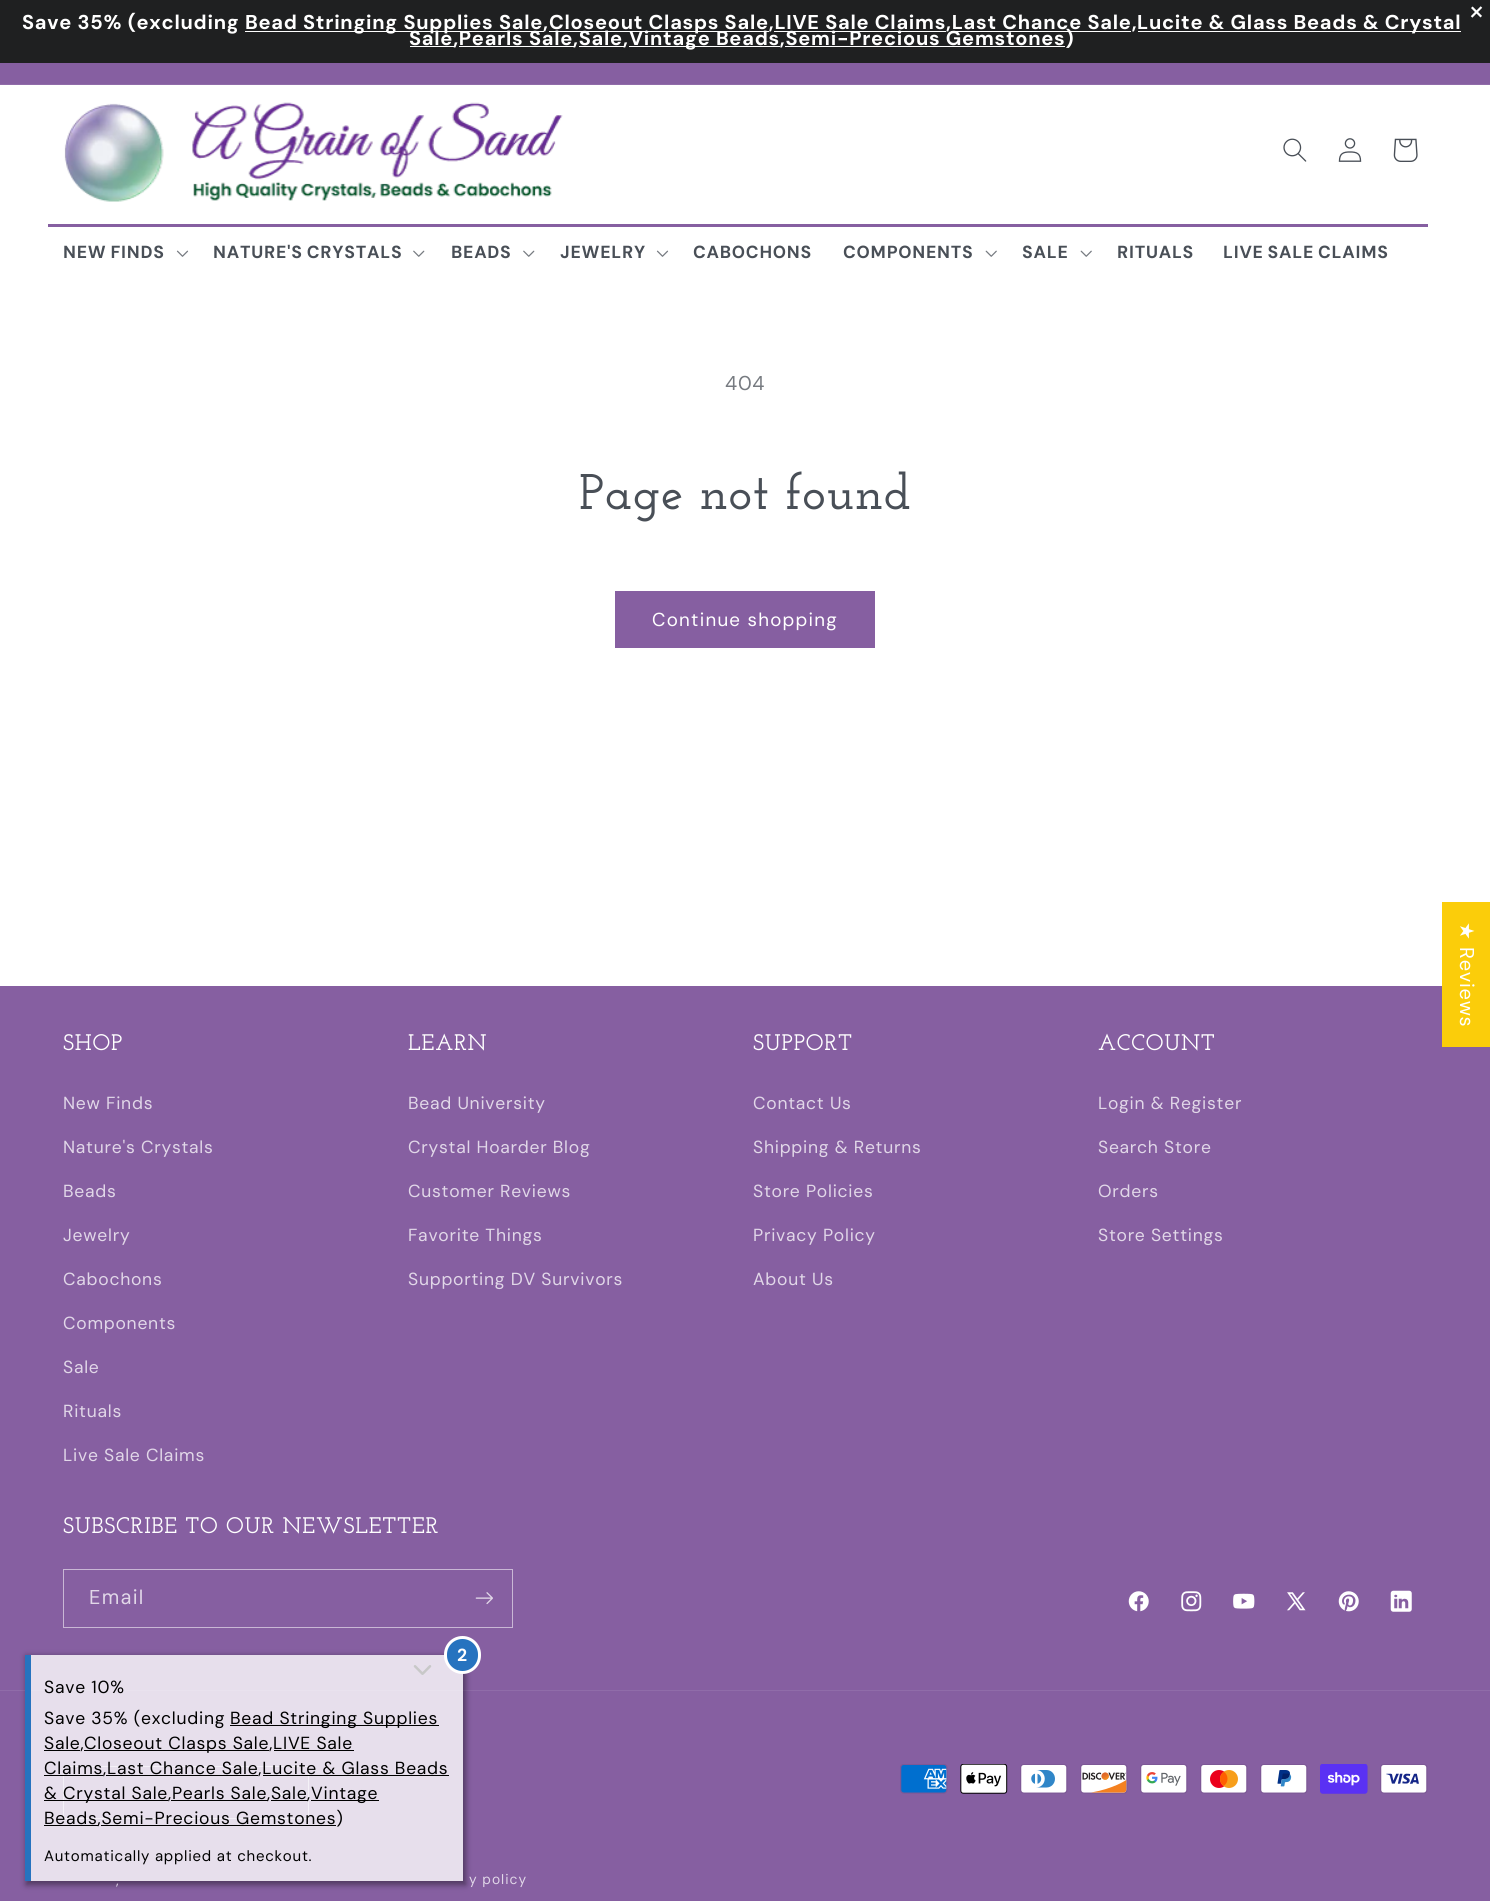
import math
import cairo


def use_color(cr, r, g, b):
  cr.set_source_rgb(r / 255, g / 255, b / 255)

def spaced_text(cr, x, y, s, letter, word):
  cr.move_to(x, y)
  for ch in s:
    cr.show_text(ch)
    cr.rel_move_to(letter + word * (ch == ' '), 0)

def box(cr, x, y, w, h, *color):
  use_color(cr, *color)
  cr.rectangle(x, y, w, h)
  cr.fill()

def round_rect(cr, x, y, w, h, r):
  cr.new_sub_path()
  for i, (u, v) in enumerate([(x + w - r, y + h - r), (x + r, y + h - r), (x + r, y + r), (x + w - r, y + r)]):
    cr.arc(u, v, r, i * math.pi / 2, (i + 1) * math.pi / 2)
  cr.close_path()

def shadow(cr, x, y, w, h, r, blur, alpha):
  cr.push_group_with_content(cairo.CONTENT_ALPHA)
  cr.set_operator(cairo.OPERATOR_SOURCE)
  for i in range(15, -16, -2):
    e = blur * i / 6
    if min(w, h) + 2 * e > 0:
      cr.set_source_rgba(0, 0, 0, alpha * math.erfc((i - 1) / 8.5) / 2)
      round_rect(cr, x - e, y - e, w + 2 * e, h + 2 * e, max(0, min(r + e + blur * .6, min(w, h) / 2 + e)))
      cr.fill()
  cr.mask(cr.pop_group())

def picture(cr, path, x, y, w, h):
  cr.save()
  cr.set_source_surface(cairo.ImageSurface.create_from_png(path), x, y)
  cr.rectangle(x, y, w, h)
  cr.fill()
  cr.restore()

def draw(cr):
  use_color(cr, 255, 255, 255)
  cr.paint()
  box(cr, 0, 0, 1490, 63, 31, 32, 33)
  box(cr, 245, 31, 299, 1, 255, 255, 255)
  box(cr, 549, 31, 220, 1, 255, 255, 255)
  box(cr, 774, 31, 172, 1, 255, 255, 255)
  box(cr, 951, 31, 180, 1, 255, 255, 255)
  box(cr, 1138, 31, 323, 1, 255, 255, 255)
  box(cr, 410, 46, 44, 1, 255, 255, 255)
  box(cr, 459, 46, 115, 1, 255, 255, 255)
  box(cr, 579, 46, 45, 1, 255, 255, 255)
  box(cr, 629, 46, 151, 1, 255, 255, 255)
  box(cr, 785, 46, 280, 1, 255, 255, 255)
  box(cr, 0, 63, 1490, 21, 134, 95, 161)
  box(cr, 0, 84, 1490, 1, 144, 108, 169)
  picture(cr, "img_01.png", 64, 102, 499, 100)
  picture(cr, "img_02.png", 1283, 138, 24, 24)
  picture(cr, "img_03.png", 1338, 138, 24, 24)
  picture(cr, "img_04.png", 1393, 138, 25, 24)
  box(cr, 48, 224, 1380, 3, 134, 95, 161)
  picture(cr, "img_05.png", 176, 250, 13, 7)
  picture(cr, "img_06.png", 413, 250, 12, 7)
  picture(cr, "img_06.png", 523, 250, 12, 7)
  picture(cr, "img_05.png", 656, 250, 13, 7)
  picture(cr, "img_07.png", 985, 250, 12, 7)
  picture(cr, "img_07.png", 1080, 250, 12, 7)
  box(cr, 615, 591, 260, 57, 134, 95, 161)
  box(cr, 0, 986, 1490, 915, 134, 95, 161)
  box(cr, 1442, 902, 48, 145, 251, 205, 10)
  cr.rectangle(63.5, 1569.5, 449, 58)
  use_color(cr, 201, 183, 213)
  cr.set_line_width(1)
  cr.stroke()
  picture(cr, "img_08.png", 475, 1592, 18, 13)
  picture(cr, "img_09.png", 1128, 1591, 21, 21)
  picture(cr, "img_10.png", 1181, 1591, 21, 21)
  picture(cr, "img_11.png", 1233, 1593, 22, 16)
  picture(cr, "img_12.png", 1287, 1592, 19, 19)
  picture(cr, "img_13.png", 1338, 1591, 21, 21)
  picture(cr, "img_14.png", 1390, 1590, 22, 22)
  box(cr, 0, 1690, 1490, 1, 144, 108, 169)
  picture(cr, "img_15.png", 276, 1790, 13, 7)
  cr.rectangle(63.5, 1766.5, 245, 52)
  use_color(cr, 201, 183, 213)
  cr.stroke()
  picture(cr, "img_16.png", 900, 1764, 48, 30)
  picture(cr, "img_17.png", 960, 1764, 48, 30)
  picture(cr, "img_18.png", 1020, 1764, 48, 30)
  picture(cr, "img_19.png", 1080, 1764, 48, 30)
  picture(cr, "img_20.png", 1140, 1764, 48, 30)
  picture(cr, "img_21.png", 1200, 1764, 48, 30)
  picture(cr, "img_22.png", 1260, 1764, 48, 30)
  picture(cr, "img_23.png", 1320, 1764, 48, 30)
  picture(cr, "img_24.png", 1380, 1764, 48, 30)
  cr.save()
  cr.set_fill_rule(cairo.FILL_RULE_EVEN_ODD)
  cr.new_path()
  cr.move_to(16, 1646)
  cr.line_to(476, 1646)
  cr.line_to(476, 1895)
  cr.line_to(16, 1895)
  cr.close_path()
  cr.move_to(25, 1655)
  cr.line_to(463, 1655)
  cr.line_to(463, 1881)
  cr.line_to(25, 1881)
  cr.close_path()
  cr.clip()
  use_color(cr, 0, 0, 0)
  shadow(cr, 26, 1656, 440, 229, 0, 3, 0.4)
  cr.restore()
  cr.set_source_rgba(1, 1, 1, 0.8)
  cr.rectangle(31, 1655, 432, 226)
  cr.fill()
  use_color(cr, 38, 115, 191)
  round_rect(cr, 445.5, 1637.5, 34, 35, 17)
  cr.fill_preserve()
  use_color(cr, 255, 255, 255)
  cr.set_line_width(3)
  cr.stroke()
  box(cr, 25, 1655, 6, 226, 38, 115, 191)
  picture(cr, "img_25.png", 413, 1665, 19, 10)
  box(cr, 230, 1725, 209, 1, 0, 0, 0)
  box(cr, 44, 1750, 36, 1, 0, 0, 0)
  box(cr, 84, 1750, 185, 1, 0, 0, 0)
  box(cr, 274, 1750, 80, 1, 0, 0, 0)
  box(cr, 44, 1775, 59, 1, 0, 0, 0)
  box(cr, 106, 1775, 152, 1, 0, 0, 0)
  box(cr, 263, 1775, 186, 1, 0, 0, 0)
  box(cr, 44, 1800, 124, 1, 0, 0, 0)
  box(cr, 171, 1800, 97, 1, 0, 0, 0)
  box(cr, 271, 1800, 37, 1, 0, 0, 0)
  box(cr, 311, 1800, 68, 1, 0, 0, 0)
  box(cr, 44, 1825, 54, 1, 0, 0, 0)
  box(cr, 101, 1825, 235, 1, 0, 0, 0)
  cr.select_font_face("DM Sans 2", cairo.FONT_SLANT_NORMAL, cairo.FONT_WEIGHT_BOLD)
  cr.set_font_size(20)
  use_color(cr, 255, 255, 255)
  spaced_text(cr, 22, 29, "Save 35% (excluding", 0.75, 0)
  spaced_text(cr, 245, 29, "Bead Stringing Supplies Sale,", 0.75, 0)
  spaced_text(cr, 549, 29, "Closeout Clasps Sale,LIVE Sale Claims,Last Chance Sale,", 0.75, 0)
  spaced_text(cr, 1137, 29, "Lucite & Glass Beads & Crystal", 0.75, 0)
  spaced_text(cr, 409, 45, "Sale,Pearls Sale", 0.75, 0)
  spaced_text(cr, 573, 45, ",Sale", 0.75, 0)
  spaced_text(cr, 623, 45, ",", 0.75, 0)
  spaced_text(cr, 629, 45, "Vintage Beads,Semi-Precious Gemstones)", 0.75, 0)
  cr.select_font_face("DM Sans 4")
  cr.set_font_size(31)
  spaced_text(cr, 1468, 21, "×", 0.75, 0)
  cr.select_font_face("DM Sans", cairo.FONT_SLANT_NORMAL, cairo.FONT_WEIGHT_BOLD)
  cr.set_font_size(17.5)
  use_color(cr, 73, 79, 87)
  spaced_text(cr, 63, 258, "NEW FINDS", 0.75, -1)
  spaced_text(cr, 213, 258, "NATURE'S CRYSTALS", 0.75, -1)
  spaced_text(cr, 451, 258, "BEADS", 0.75, 0)
  spaced_text(cr, 560, 258, "JEWELRY", 0.75, 0)
  spaced_text(cr, 693, 258, "CABOCHONS", 0.75, 0)
  spaced_text(cr, 843, 258, "COMPONENTS", 0.75, 0)
  spaced_text(cr, 1022, 258, "SALE", 0.75, 0)
  spaced_text(cr, 1117, 258, "RITUALS", 0.75, 0)
  spaced_text(cr, 1223, 258, "LIVE SALE CLAIMS", 0.75, -1)
  cr.select_font_face("DM Sans")
  cr.set_font_size(20)
  use_color(cr, 119, 123, 129)
  spaced_text(cr, 725, 390, "404", 0.75, 0)
  cr.select_font_face("Josefin Slab SemiBold")
  cr.set_font_size(50)
  use_color(cr, 73, 79, 87)
  spaced_text(cr, 579, 509, "Page not found", 0.75, 0)
  cr.select_font_face("DM Sans 2")
  cr.set_font_size(18.75)
  use_color(cr, 255, 255, 255)
  spaced_text(cr, 652, 626, "Continue shopping", 1.25, 0)
  cr.select_font_face("DejaVu Sans")
  cr.set_font_size(20)
  cr.save()
  cr.translate(1460, 922)
  cr.rotate(90 * math.pi / 180)
  spaced_text(cr, 0, 0, "★", 0.75, 0)
  cr.restore()
  cr.select_font_face("DM Sans")
  cr.save()
  cr.translate(1460, 947)
  cr.rotate(90 * math.pi / 180)
  spaced_text(cr, 0, 0, "Reviews", 0.75, 0)
  cr.restore()
  cr.select_font_face("Josefin Slab SemiBold")
  cr.set_font_size(22.5)
  spaced_text(cr, 63, 1050, "SHOP", 0.75, 0)
  cr.select_font_face("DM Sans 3")
  cr.set_font_size(17.5)
  use_color(cr, 225, 215, 232)
  spaced_text(cr, 63, 1109, "New Finds", 0.75, 0)
  spaced_text(cr, 63, 1153, "Nature's Crystals", 0.75, 0)
  spaced_text(cr, 63, 1197, "Beads", 0.75, 0)
  spaced_text(cr, 63, 1241, "Jewelry", 0.75, 0)
  spaced_text(cr, 63, 1285, "Cabochons", 0.75, 0)
  spaced_text(cr, 63, 1329, "Components", 0.75, 0)
  spaced_text(cr, 63, 1373, "Sale", 0.75, 0)
  spaced_text(cr, 63, 1417, "Rituals", 0.75, 0)
  spaced_text(cr, 63, 1461, "Live Sale Claims", 0.75, 0)
  cr.select_font_face("Josefin Slab SemiBold")
  cr.set_font_size(22.5)
  use_color(cr, 255, 255, 255)
  spaced_text(cr, 408, 1050, "LEARN", 0.75, 0)
  cr.select_font_face("DM Sans 3")
  cr.set_font_size(17.5)
  use_color(cr, 225, 215, 232)
  spaced_text(cr, 408, 1109, "Bead University", 0.75, 0)
  spaced_text(cr, 408, 1153, "Crystal Hoarder Blog", 0.75, 0)
  spaced_text(cr, 408, 1197, "Customer Reviews", 0.75, 0)
  spaced_text(cr, 408, 1241, "Favorite Things", 0.75, 0)
  spaced_text(cr, 408, 1285, "Supporting DV Survivors", 0.75, 0)
  cr.select_font_face("Josefin Slab SemiBold")
  cr.set_font_size(22.5)
  use_color(cr, 255, 255, 255)
  spaced_text(cr, 753, 1050, "SUPPORT", 0.75, 0)
  cr.select_font_face("DM Sans 3")
  cr.set_font_size(17.5)
  use_color(cr, 225, 215, 232)
  spaced_text(cr, 753, 1109, "Contact Us", 0.75, 0)
  spaced_text(cr, 753, 1153, "Shipping & Returns", 0.75, 0)
  spaced_text(cr, 753, 1197, "Store Policies", 0.75, 0)
  spaced_text(cr, 753, 1241, "Privacy Policy", 0.75, 0)
  spaced_text(cr, 753, 1285, "About Us", 0.75, 0)
  cr.select_font_face("Josefin Slab SemiBold")
  cr.set_font_size(22.5)
  use_color(cr, 255, 255, 255)
  spaced_text(cr, 1098, 1050, "ACCOUNT", 0.75, 0)
  cr.select_font_face("DM Sans 3")
  cr.set_font_size(17.5)
  use_color(cr, 225, 215, 232)
  spaced_text(cr, 1098, 1109, "Login & Register", 0.75, 0)
  spaced_text(cr, 1098, 1153, "Search Store", 0.75, 0)
  spaced_text(cr, 1098, 1197, "Orders", 0.75, 0)
  spaced_text(cr, 1098, 1241, "Store Settings", 0.75, 0)
  cr.select_font_face("Josefin Slab SemiBold")
  cr.set_font_size(22.5)
  use_color(cr, 255, 255, 255)
  spaced_text(cr, 63, 1533, "SUBSCRIBE TO OUR NEWSLETTER", 0.75, 0)
  cr.select_font_face("DM Sans 4")
  cr.set_font_size(20)
  use_color(cr, 225, 215, 232)
  spaced_text(cr, 89, 1604, "Email", 1.25, 0)
  cr.set_font_size(13.75)
  spaced_text(cr, 116, 1885, ",", 1, 0)
  spaced_text(cr, 469, 1884, "y policy", 1, 0)
  cr.select_font_face("DM Sans 3", cairo.FONT_SLANT_NORMAL, cairo.FONT_WEIGHT_BOLD)
  cr.set_font_size(17.5)
  use_color(cr, 255, 255, 255)
  spaced_text(cr, 457, 1661, "2", 0.75, 0)
  cr.select_font_face("DM Sans 3")
  use_color(cr, 0, 0, 0)
  spaced_text(cr, 44, 1693, "Save 10%", 0.75, 0)
  spaced_text(cr, 44, 1724, "Save 35% (excluding", 0.75, 0)
  spaced_text(cr, 230, 1724, "Bead Stringing Supplies", 0.75, 0)
  spaced_text(cr, 44, 1749, "Sale,", 0.75, 0)
  spaced_text(cr, 84, 1749, "Closeout Clasps Sale,LIVE Sale", 0.75, 0)
  spaced_text(cr, 44, 1774, "Claims,Last Chance Sale,Lucite & Glass Beads", 0.75, 0)
  spaced_text(cr, 44, 1799, "& Crystal Sale,Pearls Sale", 0.75, 0)
  spaced_text(cr, 267, 1799, ",Sale", 0.75, 0)
  spaced_text(cr, 307, 1799, ",", 0.75, 0)
  spaced_text(cr, 311, 1799, "Vintage", 0.75, 0)
  spaced_text(cr, 44, 1824, "Beads,Semi-Precious Gemstones)", 0.75, 0)
  cr.select_font_face("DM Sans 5")
  cr.set_font_size(15)
  spaced_text(cr, 44, 1861, "Automatically applied at checkout.", 0.75, 0)


surface = cairo.ImageSurface(cairo.FORMAT_RGB24, 1490, 1901)
cr = cairo.Context(surface)
options = cairo.FontOptions()
options.set_hint_metrics(cairo.HINT_METRICS_OFF)
options.set_hint_style(cairo.HINT_STYLE_NONE)
cr.set_font_options(options)
cr.set_miter_limit(4)
draw(cr)
surface.write_to_png("out.png")
